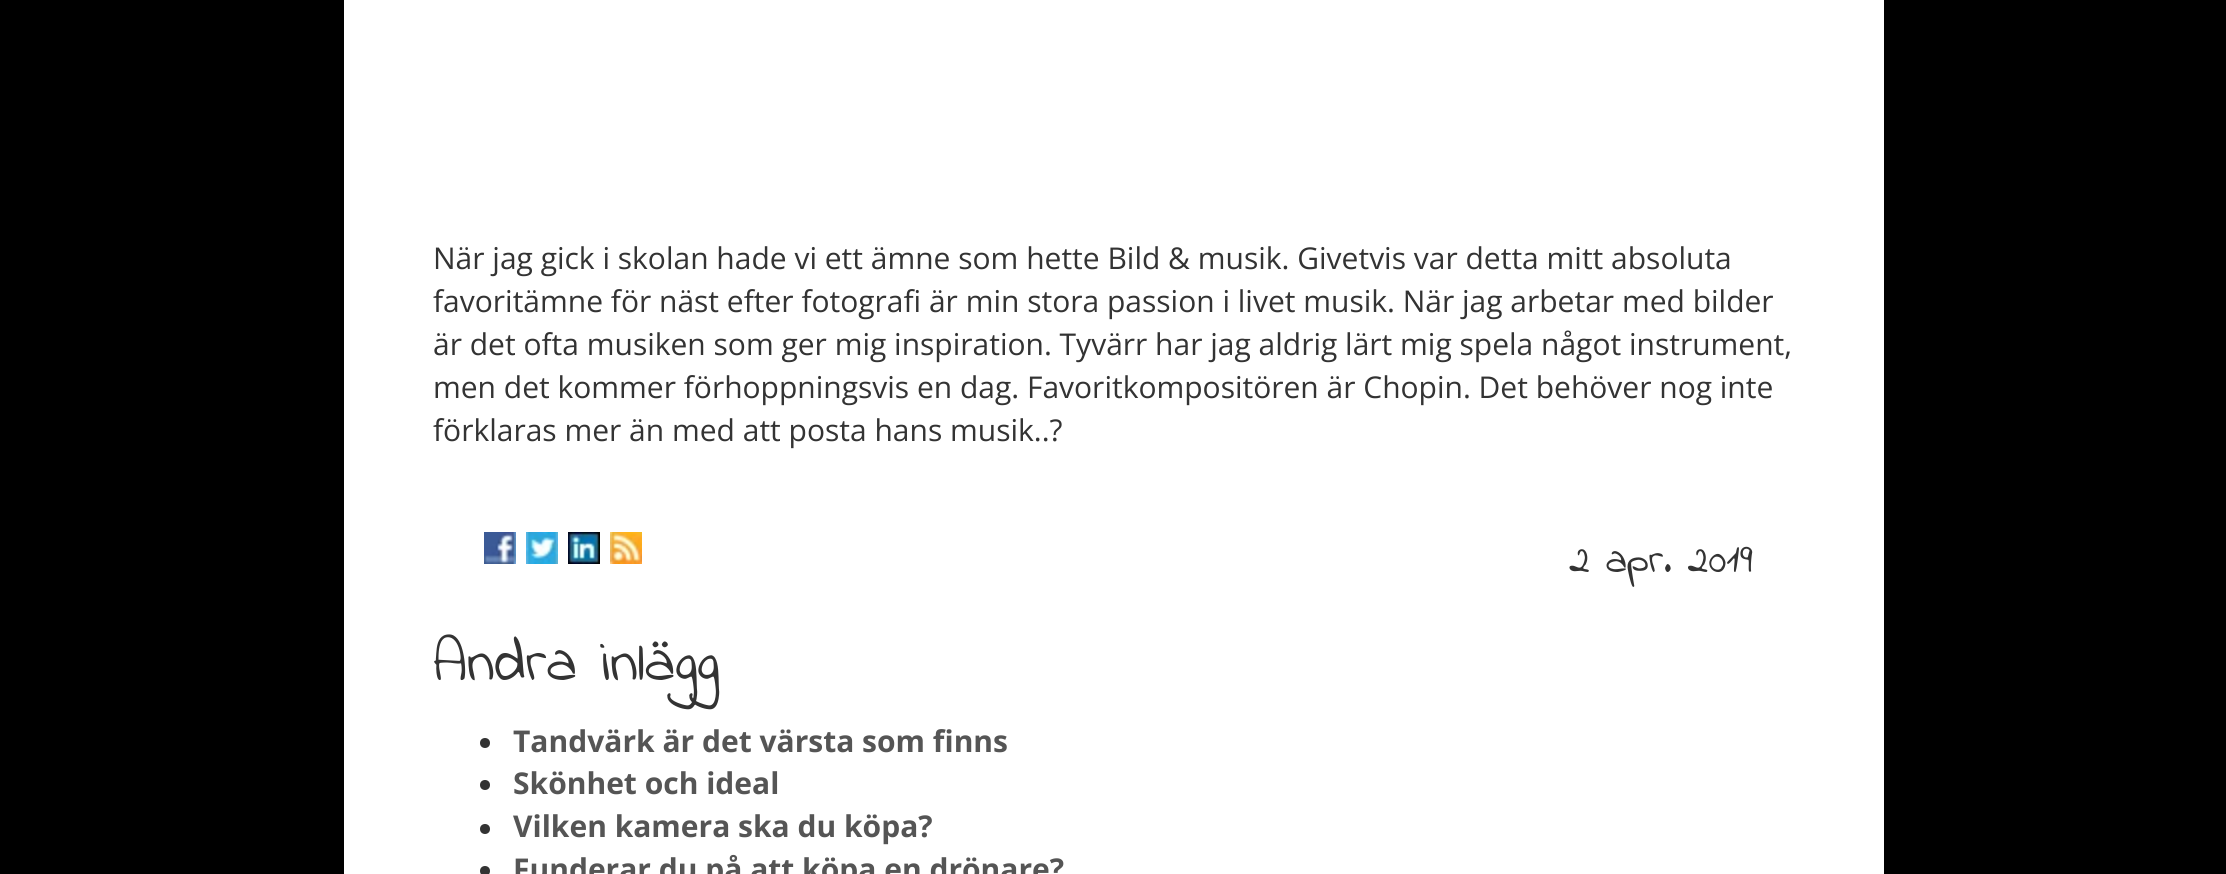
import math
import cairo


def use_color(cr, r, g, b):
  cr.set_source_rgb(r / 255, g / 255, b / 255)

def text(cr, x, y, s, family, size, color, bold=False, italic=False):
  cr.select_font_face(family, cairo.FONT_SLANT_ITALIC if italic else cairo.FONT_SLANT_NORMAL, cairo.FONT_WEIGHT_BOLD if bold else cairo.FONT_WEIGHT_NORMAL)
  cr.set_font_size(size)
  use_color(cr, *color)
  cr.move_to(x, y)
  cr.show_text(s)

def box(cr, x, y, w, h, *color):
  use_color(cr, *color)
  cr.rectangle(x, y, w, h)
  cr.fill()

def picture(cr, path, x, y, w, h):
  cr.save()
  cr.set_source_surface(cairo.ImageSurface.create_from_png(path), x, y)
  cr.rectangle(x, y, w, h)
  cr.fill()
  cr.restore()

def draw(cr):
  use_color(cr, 0, 0, 0)
  cr.paint()
  box(cr, 344, 0, 1540, 874, 255, 255, 255)
  picture(cr, "img_01.png", 484, 532, 32, 32)
  picture(cr, "img_02.png", 526, 532, 32, 32)
  picture(cr, "img_03.png", 568, 532, 32, 32)
  picture(cr, "img_04.png", 610, 532, 32, 32)
  use_color(cr, 51, 51, 51)
  cr.arc(485, 743, 5, 0, 2 * math.pi)
  cr.fill()
  cr.arc(485, 785, 5, 0, 2 * math.pi)
  cr.fill()
  cr.arc(485, 829, 5, 0, 2 * math.pi)
  cr.fill()
  cr.arc(485, 871, 5, 0, 2 * math.pi)
  cr.fill()
  text(cr, 433, 269, "När jag gick i skolan hade vi ett ämne som hette Bild & musik. Givetvis var detta mitt absoluta", "Open Sans", 30, (51, 51, 51))
  text(cr, 433, 312, "favoritämne för näst efter fotografi är min stora passion i livet musik. När jag arbetar med bilder", "Open Sans", 30, (51, 51, 51))
  text(cr, 433, 355, "är det ofta musiken som ger mig inspiration. Tyvärr har jag aldrig lärt mig spela något instrument,", "Open Sans", 30, (51, 51, 51))
  text(cr, 433, 398, "men det kommer förhoppningsvis en dag. Favoritkompositören är Chopin. Det behöver nog inte", "Open Sans", 30, (51, 51, 51))
  text(cr, 433, 441, "förklaras mer än med att posta hans musik..?", "Open Sans", 30, (51, 51, 51))
  text(cr, 1569, 572, "2 apr. 2019", "Indie Flower", 42, (51, 51, 51))
  text(cr, 433, 680, "Andra inlägg", "Indie Flower", 60, (51, 51, 51))
  text(cr, 513, 752, "Tandvärk är det värsta som finns", "Open Sans", 30, (85, 85, 85), bold=True)
  text(cr, 513, 794, "Skönhet och ideal", "Open Sans", 30, (85, 85, 85), bold=True)
  text(cr, 513, 837, "Vilken kamera ska du köpa?", "Open Sans", 30, (85, 85, 85), bold=True)
  text(cr, 513, 880, "Funderar du på att köpa en drönare?", "Open Sans", 30, (85, 85, 85), bold=True)


surface = cairo.ImageSurface(cairo.FORMAT_RGB24, 2226, 874)
cr = cairo.Context(surface)
options = cairo.FontOptions()
options.set_hint_metrics(cairo.HINT_METRICS_OFF)
options.set_hint_style(cairo.HINT_STYLE_NONE)
cr.set_font_options(options)
cr.set_miter_limit(4)
draw(cr)
surface.write_to_png("out.png")
